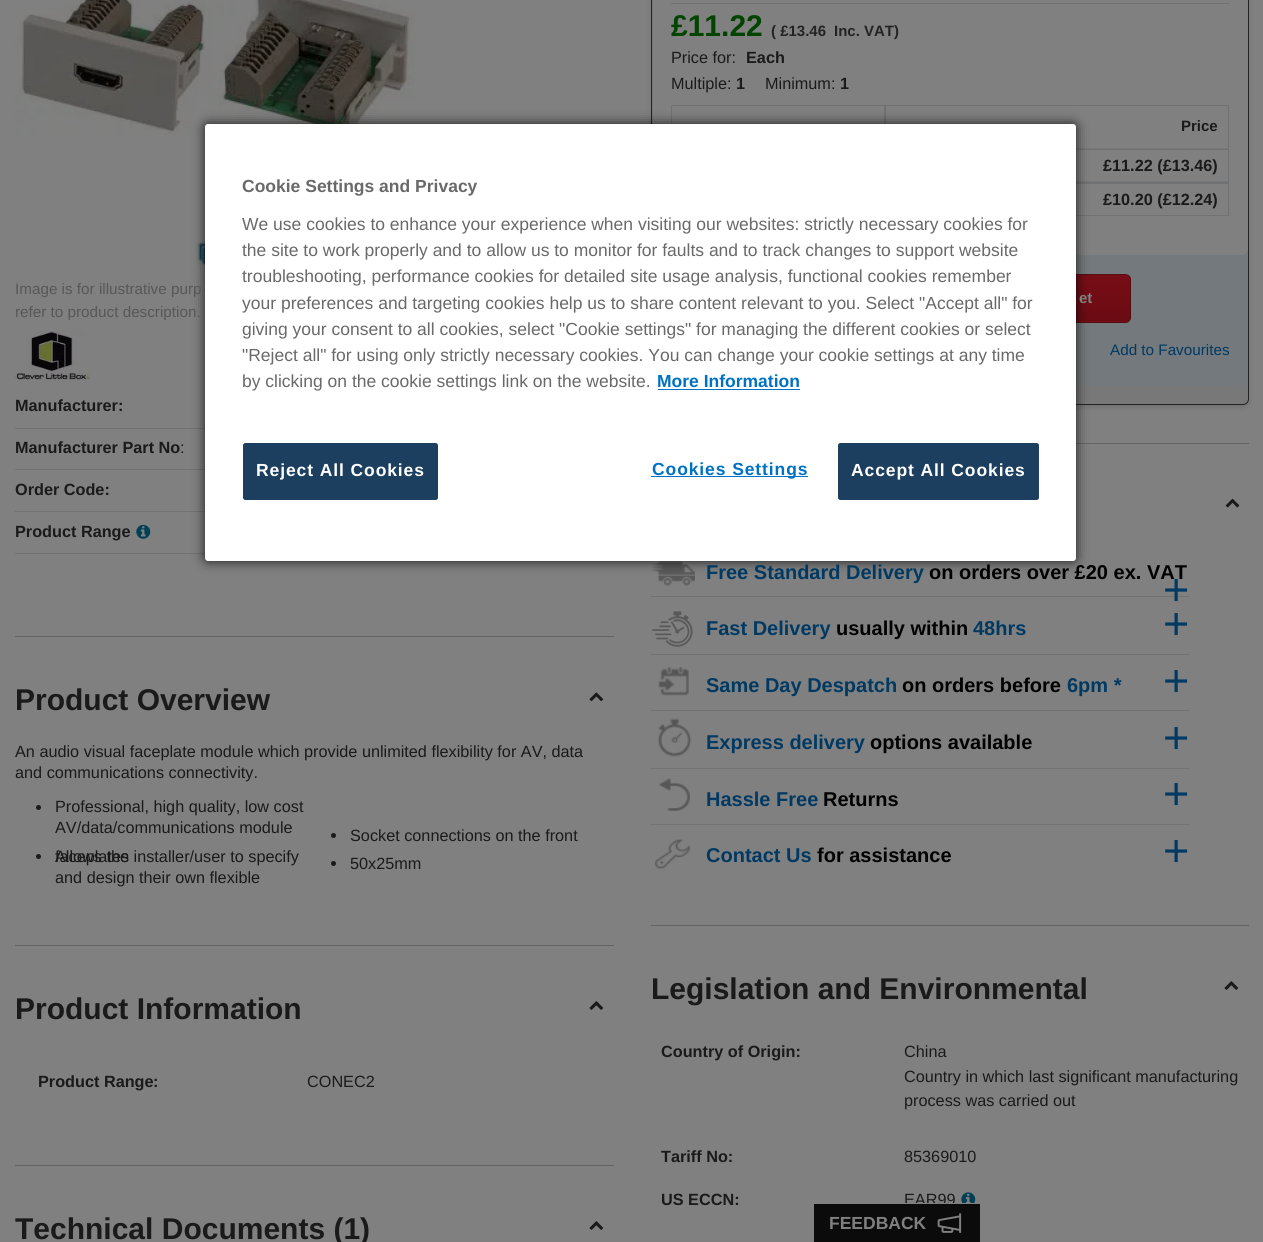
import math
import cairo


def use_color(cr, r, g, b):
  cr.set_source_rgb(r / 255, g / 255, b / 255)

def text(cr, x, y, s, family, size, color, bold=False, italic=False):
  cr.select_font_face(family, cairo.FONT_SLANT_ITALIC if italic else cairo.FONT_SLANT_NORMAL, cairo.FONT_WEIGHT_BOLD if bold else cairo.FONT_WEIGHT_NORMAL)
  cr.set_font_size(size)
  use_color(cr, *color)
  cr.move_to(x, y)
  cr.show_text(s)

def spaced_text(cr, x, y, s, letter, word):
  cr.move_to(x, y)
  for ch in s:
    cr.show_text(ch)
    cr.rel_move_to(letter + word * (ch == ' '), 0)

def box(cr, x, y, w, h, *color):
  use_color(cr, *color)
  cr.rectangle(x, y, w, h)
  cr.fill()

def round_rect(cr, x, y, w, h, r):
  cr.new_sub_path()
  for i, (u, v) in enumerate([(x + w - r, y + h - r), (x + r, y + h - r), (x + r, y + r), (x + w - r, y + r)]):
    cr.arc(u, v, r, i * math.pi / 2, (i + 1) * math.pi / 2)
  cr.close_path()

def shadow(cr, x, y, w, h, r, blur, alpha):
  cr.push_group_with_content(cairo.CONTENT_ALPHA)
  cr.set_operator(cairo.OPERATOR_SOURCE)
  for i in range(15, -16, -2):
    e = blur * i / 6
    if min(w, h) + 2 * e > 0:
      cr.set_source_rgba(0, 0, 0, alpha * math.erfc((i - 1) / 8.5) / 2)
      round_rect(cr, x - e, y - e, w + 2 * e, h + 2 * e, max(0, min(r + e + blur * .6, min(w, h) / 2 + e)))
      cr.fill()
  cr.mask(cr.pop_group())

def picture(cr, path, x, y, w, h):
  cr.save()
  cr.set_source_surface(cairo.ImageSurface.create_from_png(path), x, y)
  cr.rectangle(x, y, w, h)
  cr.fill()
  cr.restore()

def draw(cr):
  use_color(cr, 128, 128, 128)
  cr.paint()
  picture(cr, "img_01.png", 15, 0, 400, 135)
  picture(cr, "img_02.png", 196, 241, 9, 24)
  picture(cr, "img_03.png", 15, 331, 77, 50)
  box(cr, 15, 428, 190, 1, 111, 113, 115)
  box(cr, 15, 469, 190, 1, 111, 113, 115)
  box(cr, 15, 511, 190, 1, 111, 113, 115)
  box(cr, 15, 553, 190, 1, 111, 113, 115)
  picture(cr, "img_04.png", 136, 524, 15, 15)
  box(cr, 15, 636, 599, 1, 100, 100, 100)
  picture(cr, "img_05.png", 589, 692, 15, 10)
  use_color(cr, 26, 26, 26)
  cr.arc(38.5, 807.5, 2.5, 0, 2 * math.pi)
  cr.fill()
  cr.arc(333.5, 835.5, 2.5, 0, 2 * math.pi)
  cr.fill()
  cr.arc(38.5, 856.5, 2.5, 0, 2 * math.pi)
  cr.fill()
  cr.arc(333.5, 863.5, 2.5, 0, 2 * math.pi)
  cr.fill()
  box(cr, 15, 945, 599, 1, 100, 100, 100)
  picture(cr, "img_06.png", 589, 1001, 15, 9)
  box(cr, 15, 1165, 599, 1, 100, 100, 100)
  picture(cr, "img_06.png", 589, 1221, 15, 9)
  use_color(cr, 0, 0, 0)
  shadow(cr, 651, -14, 598, 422, 6, 2.5, 0.1)
  use_color(cr, 120, 120, 120)
  round_rect(cr, 651.5, -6.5, 597, 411, 5.5)
  cr.fill_preserve()
  use_color(cr, 35, 35, 35)
  cr.set_line_width(1)
  cr.stroke()
  use_color(cr, 128, 128, 128)
  round_rect(cr, 653, -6, 595, 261, 6)
  cr.fill()
  box(cr, 671, 3, 558, 1, 113, 113, 113)
  cr.rectangle(671.5, 105.5, 213, 43)
  use_color(cr, 111, 113, 115)
  cr.stroke()
  cr.rectangle(885.5, 105.5, 343, 43)
  cr.stroke()
  box(cr, 1076, 148, 153, 1, 119, 119, 119)
  box(cr, 1076, 181, 153, 1, 119, 119, 119)
  cr.rectangle(885.5, 149.5, 343, 33)
  use_color(cr, 111, 113, 115)
  cr.stroke()
  cr.rectangle(885.5, 183.5, 343, 32)
  cr.stroke()
  use_color(cr, 115, 121, 124)
  cr.new_path()
  cr.move_to(653, 255)
  cr.line_to(1248, 255)
  cr.line_to(1248, 379)
  cr.curve_to(1248, 382.5, 1245.5, 385, 1242, 385)
  cr.line_to(659, 385)
  cr.curve_to(655.5, 385, 653, 382.5, 653, 379)
  cr.close_path()
  cr.fill()
  cr.save()
  round_rect(cr, 953, 274, 178, 49, 6)
  cr.clip()
  gradient = cairo.LinearGradient(1042, 275, 1042, 321)
  gradient.add_color_stop_rgba(0, 0.467, 0.051, 0.086, 1)
  gradient.add_color_stop_rgba(1, 0.42, 0.043, 0.075, 1)
  cr.set_source(gradient)
  cr.rectangle(1076, 275, 55, 46)
  cr.fill()
  gradient = cairo.LinearGradient(1042, 321, 1042, 368)
  gradient.add_color_stop_rgba(0, 0.467, 0.051, 0.086, 1)
  gradient.add_color_stop_rgba(1, 0.42, 0.043, 0.075, 1)
  cr.set_source(gradient)
  cr.rectangle(1076, 321, 55, 2)
  cr.fill()
  cr.restore()
  round_rect(cr, 953.5, 274.5, 177, 48, 5.5)
  use_color(cr, 82, 14, 17)
  cr.stroke()
  box(cr, 1076, 443, 173, 1, 100, 100, 100)
  picture(cr, "img_07.png", 1225, 498, 15, 10)
  picture(cr, "img_08.png", 651, 561, 44, 25)
  box(cr, 651, 596, 538, 1, 113, 113, 113)
  picture(cr, "img_09.png", 652, 611, 41, 36)
  box(cr, 651, 654, 538, 1, 113, 113, 113)
  picture(cr, "img_10.png", 658, 667, 31, 29)
  box(cr, 651, 710, 538, 1, 113, 113, 113)
  picture(cr, "img_11.png", 657, 718, 35, 39)
  box(cr, 651, 768, 538, 1, 113, 113, 113)
  picture(cr, "img_12.png", 659, 778, 31, 33)
  box(cr, 651, 824, 538, 1, 113, 113, 113)
  picture(cr, "img_13.png", 655, 839, 35, 30)
  box(cr, 651, 925, 598, 1, 100, 100, 100)
  picture(cr, "img_06.png", 1224, 981, 15, 9)
  picture(cr, "img_14.png", 961, 1192, 15, 11)
  use_color(cr, 0, 0, 0)
  shadow(cr, 205, 124, 871, 437, 3, 6, 0.8)
  text(cr, 15, 294, "Image is for illustrative purpo", "Liberation Sans", 15.25, (87, 87, 87))
  text(cr, 15, 317, "refer to product description.", "Liberation Sans", 15.25, (87, 87, 87))
  text(cr, 15, 411, "Manufacturer:", "Liberation Sans", 16.25, (26, 26, 26), bold=True)
  text(cr, 15, 453, "Manufacturer Part No", "Liberation Sans", 16.25, (26, 26, 26), bold=True)
  text(cr, 180, 453, ":", "Liberation Sans", 16.25, (26, 26, 26))
  text(cr, 15, 495, "Order Code:", "Liberation Sans", 16.25, (26, 26, 26), bold=True)
  text(cr, 15, 537, "Product Range", "Liberation Sans", 16.25, (26, 26, 26), bold=True)
  text(cr, 15, 710, "Product Overview", "Liberation Sans", 30, (26, 26, 26), bold=True)
  text(cr, 15, 757, "An audio visual faceplate module which provide unlimited flexibility for AV, data", "Liberation Sans", 16.25, (26, 26, 26))
  text(cr, 15, 778, "and communications connectivity.", "Liberation Sans", 16.25, (26, 26, 26))
  text(cr, 55, 812, "Professional, high quality, low cost", "Liberation Sans", 16.25, (26, 26, 26))
  text(cr, 55, 833, "AV/data/communications module", "Liberation Sans", 16.25, (26, 26, 26))
  text(cr, 350, 841, "Socket connections on the front", "Liberation Sans", 16.25, (26, 26, 26))
  text(cr, 55, 862, "Allows the installer/user to specify", "Liberation Sans", 16.25, (26, 26, 26))
  text(cr, 55, 862, "faceplates", "Liberation Sans", 16.25, (26, 26, 26))
  text(cr, 55, 883, "and design their own flexible", "Liberation Sans", 16.25, (26, 26, 26))
  text(cr, 350, 869, "50x25mm", "Liberation Sans", 16.25, (26, 26, 26))
  text(cr, 15, 1019, "Product Information", "Liberation Sans", 30, (26, 26, 26), bold=True)
  text(cr, 38, 1087, "Product Range", "Liberation Sans", 16.25, (26, 26, 26), bold=True)
  text(cr, 153, 1087, ":", "Liberation Sans", 16.25, (26, 26, 26), bold=True)
  text(cr, 307, 1087, "CONEC2", "Liberation Sans", 16.25, (26, 26, 26))
  text(cr, 15, 1239, "Technical Documents (1)", "Liberation Sans", 30, (26, 26, 26), bold=True)
  text(cr, 671, 36, "£11.22", "Liberation Sans", 30, (0, 68, 0), bold=True)
  text(cr, 771, 36, "( £13.46", "Liberation Sans", 15, (35, 35, 35), bold=True)
  text(cr, 834, 36, "Inc. VAT)", "Liberation Sans", 15, (35, 35, 35), bold=True)
  text(cr, 671, 63, "Price for:", "Liberation Sans", 16.25, (26, 26, 26))
  text(cr, 746, 63, "Each", "Liberation Sans", 16.25, (26, 26, 26), bold=True)
  text(cr, 671, 89, "Multiple:", "Liberation Sans", 16.25, (26, 26, 26))
  text(cr, 736, 89, "1", "Liberation Sans", 16.25, (26, 26, 26), bold=True)
  text(cr, 765, 89, "Minimum:", "Liberation Sans", 16.25, (26, 26, 26))
  text(cr, 840, 89, "1", "Liberation Sans", 16.25, (26, 26, 26), bold=True)
  text(cr, 1181, 131, "Price", "Liberation Sans", 15, (26, 26, 26), bold=True)
  text(cr, 1103, 171, "£11.22 (£13.46)", "Liberation Sans", 16.25, (26, 26, 26), bold=True)
  text(cr, 1103, 205, "£10.20 (£12.24)", "Liberation Sans", 16.25, (26, 26, 26), bold=True)
  text(cr, 1079, 303, "et", "Liberation Sans", 15, (128, 128, 128), bold=True)
  text(cr, 1110, 355, "Add to Favourites", "Liberation Sans", 15.25, (0, 57, 98))
  text(cr, 706, 579, "Free Standard Delivery", "Liberation Sans", 20, (0, 57, 98), bold=True)
  text(cr, 929, 579, "on orders over £20 ex. VAT", "Liberation Sans", 20, (0, 0, 0), bold=True)
  text(cr, 1163, 605, "+", "Liberation Sans", 45, (0, 57, 98))
  text(cr, 706, 635, "Fast Delivery", "Liberation Sans", 20, (0, 57, 98), bold=True)
  text(cr, 836, 635, "usually within", "Liberation Sans", 20, (0, 0, 0), bold=True)
  text(cr, 973, 635, "48hrs", "Liberation Sans", 20, (0, 57, 98), bold=True)
  text(cr, 1163, 639, "+", "Liberation Sans", 45, (0, 57, 98))
  text(cr, 706, 692, "Same Day Despatch", "Liberation Sans", 20, (0, 57, 98), bold=True)
  text(cr, 902, 692, "on orders before", "Liberation Sans", 20, (0, 0, 0), bold=True)
  text(cr, 1067, 692, "6pm *", "Liberation Sans", 20, (0, 57, 98), bold=True)
  text(cr, 1163, 696, "+", "Liberation Sans", 45, (0, 57, 98))
  text(cr, 706, 749, "Express delivery", "Liberation Sans", 20, (0, 57, 98), bold=True)
  text(cr, 870, 749, "options available", "Liberation Sans", 20, (0, 0, 0), bold=True)
  text(cr, 1163, 753, "+", "Liberation Sans", 45, (0, 57, 98))
  text(cr, 706, 806, "Hassle Free", "Liberation Sans", 20, (0, 57, 98), bold=True)
  text(cr, 823, 806, "Returns", "Liberation Sans", 20, (0, 0, 0), bold=True)
  text(cr, 1163, 809, "+", "Liberation Sans", 45, (0, 57, 98))
  text(cr, 706, 862, "Contact Us", "Liberation Sans", 20, (0, 57, 98), bold=True)
  text(cr, 817, 862, "for assistance", "Liberation Sans", 20, (0, 0, 0), bold=True)
  text(cr, 1163, 866, "+", "Liberation Sans", 45, (0, 57, 98))
  text(cr, 651, 999, "Legislation and Environmental", "Liberation Sans", 30, (26, 26, 26), bold=True)
  text(cr, 661, 1057, "Country of Origin:", "Liberation Sans", 16.25, (26, 26, 26), bold=True)
  text(cr, 904, 1057, "China", "Liberation Sans", 16.25, (26, 26, 26))
  text(cr, 904, 1082, "Country in which last significant manufacturing", "Liberation Sans", 16.25, (26, 26, 26))
  text(cr, 904, 1106, "process was carried out", "Liberation Sans", 16.25, (26, 26, 26))
  text(cr, 661, 1162, "Tariff No:", "Liberation Sans", 16.25, (26, 26, 26), bold=True)
  text(cr, 904, 1162, "85369010", "Liberation Sans", 16.25, (26, 26, 26))
  text(cr, 661, 1205, "US ECCN:", "Liberation Sans", 16.25, (26, 26, 26), bold=True)
  text(cr, 904, 1205, "EAR99", "Liberation Sans", 16.25, (26, 26, 26))
  box(cr, 814, 1204, 166, 38, 11, 11, 11)
  box(cr, 905, 1203, 50, 1, 128, 128, 128)
  text(cr, 829, 1229, "FEEDBACK", "Liberation Sans", 17.5, (128, 128, 128), bold=True)
  picture(cr, "img_15.png", 937, 1213, 25, 20)
  use_color(cr, 255, 255, 255)
  round_rect(cr, 205, 124, 871, 437, 3)
  cr.fill()
  text(cr, 242, 192, "Cookie Settings and Privacy", "Liberation Sans", 17.5, (105, 105, 105), bold=True)
  text(cr, 242, 230, "We use cookies to enhance your experience when visiting our websites: strictly necessary cookies for", "Liberation Sans", 17.5, (105, 105, 105))
  text(cr, 242, 256, "the site to work properly and to allow us to monitor for faults and to track changes to support website", "Liberation Sans", 17.5, (105, 105, 105))
  text(cr, 242, 282, "troubleshooting, performance cookies for detailed site usage analysis, functional cookies remember", "Liberation Sans", 17.5, (105, 105, 105))
  text(cr, 242, 309, "your preferences and targeting cookies help us to share content relevant to you. Select \"Accept all\" for", "Liberation Sans", 17.5, (105, 105, 105))
  text(cr, 242, 335, "giving your consent to all cookies, select \"Cookie settings\" for managing the different cookies or select", "Liberation Sans", 17.5, (105, 105, 105))
  text(cr, 242, 361, "\"Reject all\" for using only strictly necessary cookies. You can change your cookie settings at any time", "Liberation Sans", 17.5, (105, 105, 105))
  text(cr, 242, 387, "by clicking on the cookie settings link on the website.", "Liberation Sans", 17.5, (105, 105, 105))
  text(cr, 657, 387, "More Information", "Liberation Sans", 17.5, (0, 114, 195), bold=True)
  box(cr, 658, 389, 142, 1, 0, 114, 195)
  box(cr, 651, 476, 157, 1, 0, 114, 195)
  spaced_text(cr, 652, 475, "Cookies Settings", 0.9, 0)
  use_color(cr, 28, 63, 95)
  round_rect(cr, 243.5, 443.5, 194, 56, 2)
  cr.fill_preserve()
  cr.stroke()
  use_color(cr, 255, 255, 255)
  spaced_text(cr, 256, 476, "Reject All Cookies", 0.9, 0)
  use_color(cr, 28, 63, 95)
  round_rect(cr, 838.5, 443.5, 200, 56, 2)
  cr.fill_preserve()
  cr.stroke()
  use_color(cr, 255, 255, 255)
  spaced_text(cr, 851, 476, "Accept All Cookies", 0.9, 0)


surface = cairo.ImageSurface(cairo.FORMAT_RGB24, 1263, 1242)
cr = cairo.Context(surface)
options = cairo.FontOptions()
options.set_hint_metrics(cairo.HINT_METRICS_OFF)
options.set_hint_style(cairo.HINT_STYLE_NONE)
cr.set_font_options(options)
cr.set_miter_limit(4)
draw(cr)
surface.write_to_png("out.png")
